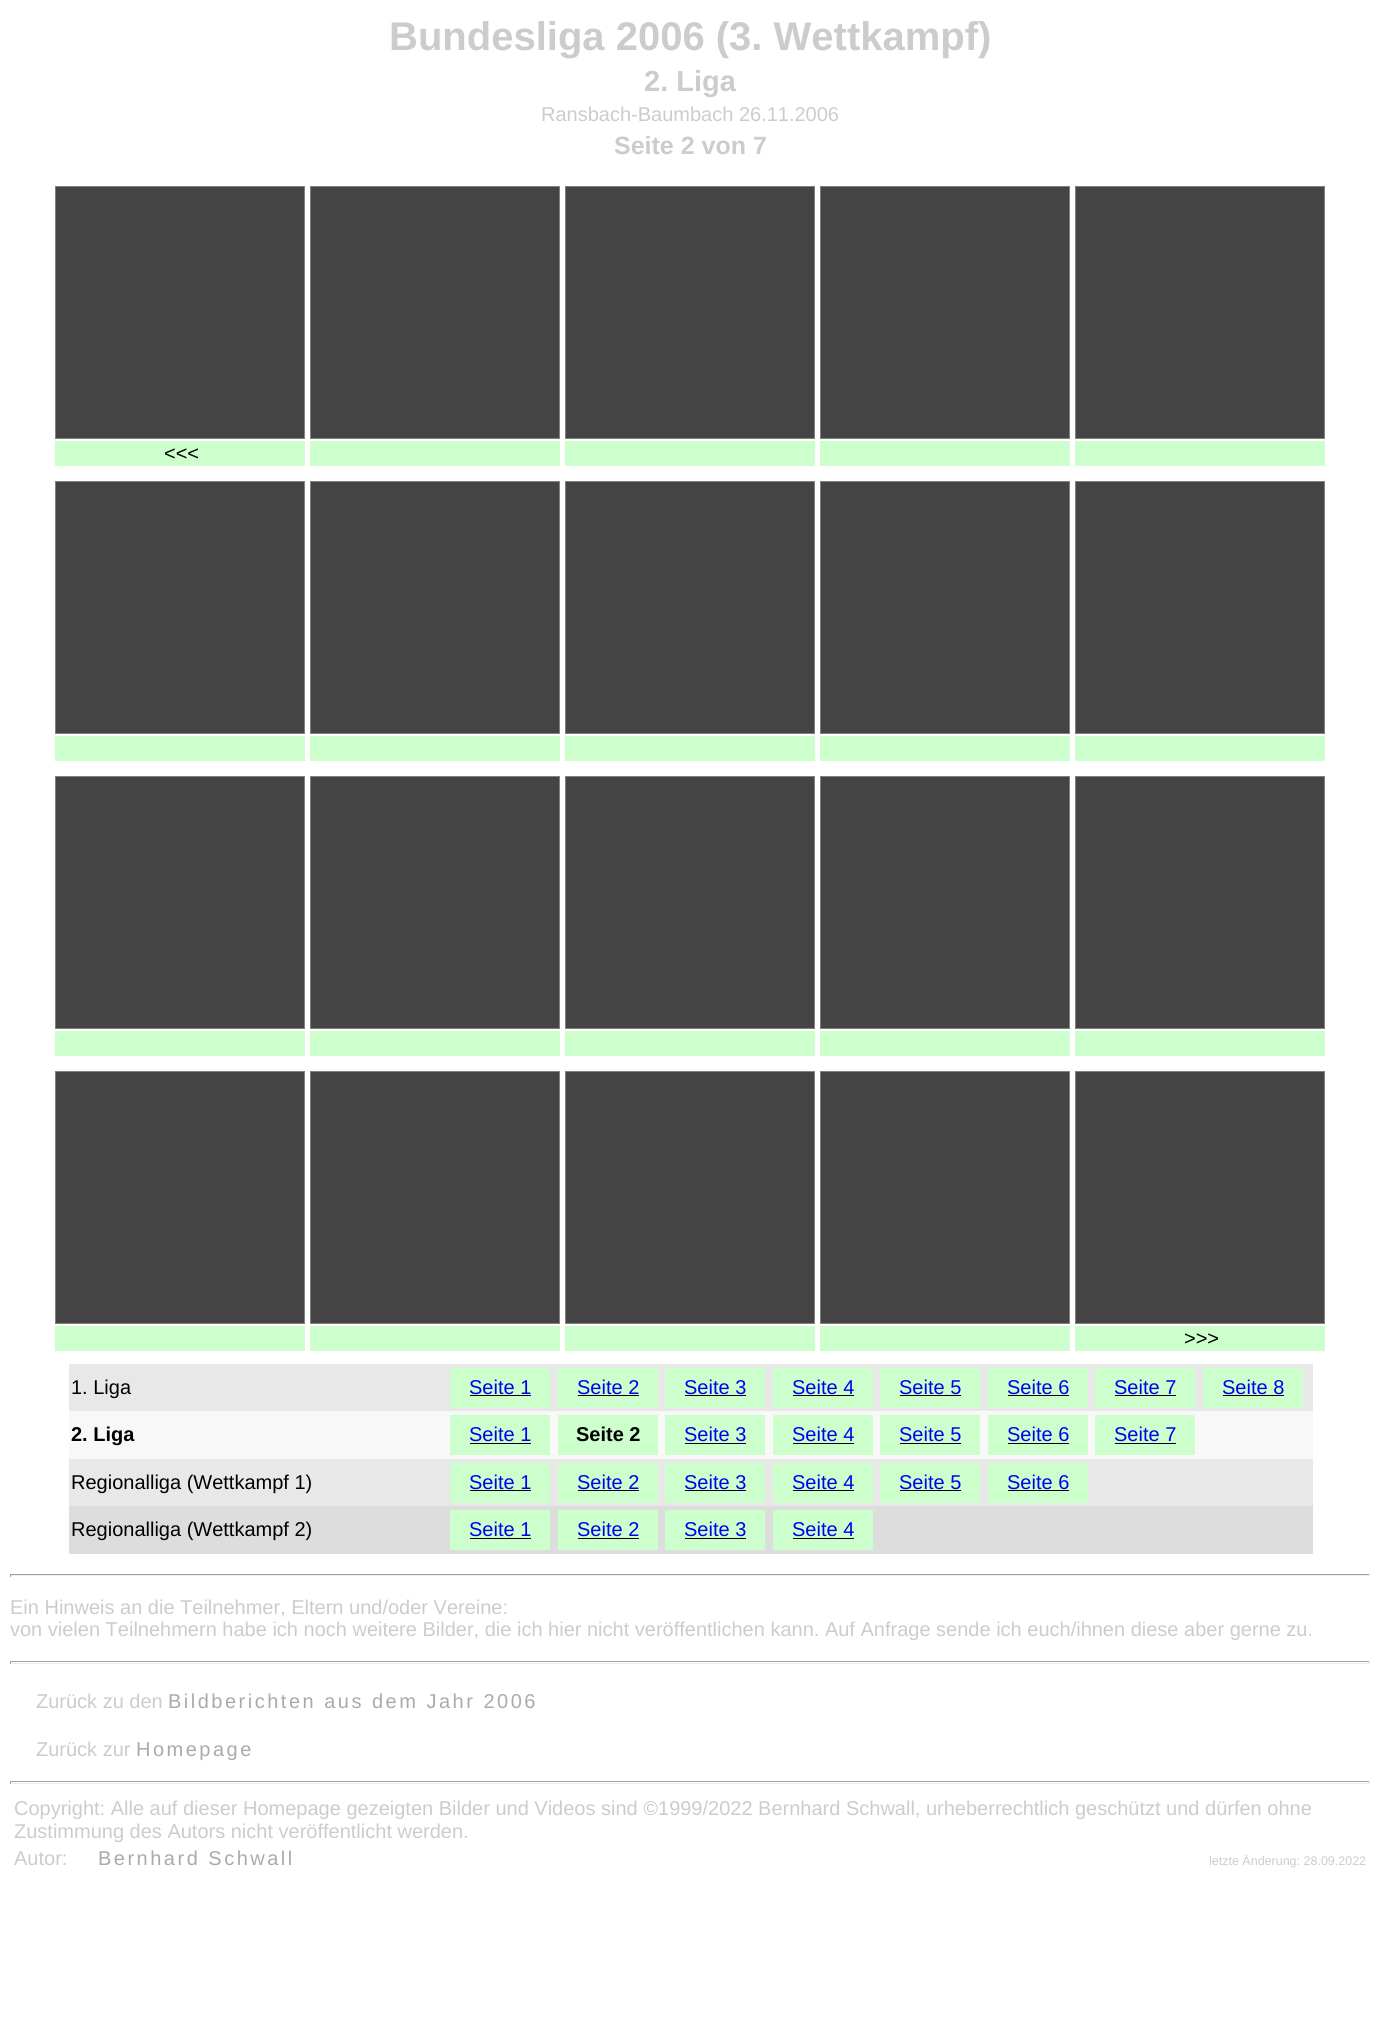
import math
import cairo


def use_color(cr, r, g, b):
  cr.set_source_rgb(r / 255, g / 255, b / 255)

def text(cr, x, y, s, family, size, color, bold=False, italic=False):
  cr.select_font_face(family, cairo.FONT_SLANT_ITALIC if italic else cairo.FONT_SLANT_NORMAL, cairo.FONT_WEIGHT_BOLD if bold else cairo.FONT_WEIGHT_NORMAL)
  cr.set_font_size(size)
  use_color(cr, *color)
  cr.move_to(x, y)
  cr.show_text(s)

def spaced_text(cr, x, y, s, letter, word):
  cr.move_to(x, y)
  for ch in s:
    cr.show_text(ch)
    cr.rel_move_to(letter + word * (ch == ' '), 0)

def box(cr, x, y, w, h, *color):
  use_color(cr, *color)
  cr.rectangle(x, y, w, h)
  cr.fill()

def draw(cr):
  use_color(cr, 255, 255, 255)
  cr.paint()
  use_color(cr, 68, 68, 68)
  cr.rectangle(55.5, 186.5, 249, 252)
  cr.fill_preserve()
  use_color(cr, 128, 128, 128)
  cr.set_line_width(1)
  cr.stroke()
  box(cr, 55, 441, 250, 25, 204, 255, 204)
  use_color(cr, 68, 68, 68)
  cr.rectangle(310.5, 186.5, 249, 252)
  cr.fill_preserve()
  use_color(cr, 128, 128, 128)
  cr.stroke()
  box(cr, 310, 441, 250, 25, 204, 255, 204)
  use_color(cr, 68, 68, 68)
  cr.rectangle(565.5, 186.5, 249, 252)
  cr.fill_preserve()
  use_color(cr, 128, 128, 128)
  cr.stroke()
  box(cr, 565, 441, 250, 25, 204, 255, 204)
  use_color(cr, 68, 68, 68)
  cr.rectangle(820.5, 186.5, 249, 252)
  cr.fill_preserve()
  use_color(cr, 128, 128, 128)
  cr.stroke()
  box(cr, 820, 441, 250, 25, 204, 255, 204)
  use_color(cr, 68, 68, 68)
  cr.rectangle(1075.5, 186.5, 249, 252)
  cr.fill_preserve()
  use_color(cr, 128, 128, 128)
  cr.stroke()
  box(cr, 1075, 441, 250, 25, 204, 255, 204)
  use_color(cr, 68, 68, 68)
  cr.rectangle(55.5, 481.5, 249, 252)
  cr.fill_preserve()
  use_color(cr, 128, 128, 128)
  cr.stroke()
  box(cr, 55, 736, 250, 25, 204, 255, 204)
  use_color(cr, 68, 68, 68)
  cr.rectangle(310.5, 481.5, 249, 252)
  cr.fill_preserve()
  use_color(cr, 128, 128, 128)
  cr.stroke()
  box(cr, 310, 736, 250, 25, 204, 255, 204)
  use_color(cr, 68, 68, 68)
  cr.rectangle(565.5, 481.5, 249, 252)
  cr.fill_preserve()
  use_color(cr, 128, 128, 128)
  cr.stroke()
  box(cr, 565, 736, 250, 25, 204, 255, 204)
  use_color(cr, 68, 68, 68)
  cr.rectangle(820.5, 481.5, 249, 252)
  cr.fill_preserve()
  use_color(cr, 128, 128, 128)
  cr.stroke()
  box(cr, 820, 736, 250, 25, 204, 255, 204)
  use_color(cr, 68, 68, 68)
  cr.rectangle(1075.5, 481.5, 249, 252)
  cr.fill_preserve()
  use_color(cr, 128, 128, 128)
  cr.stroke()
  box(cr, 1075, 736, 250, 25, 204, 255, 204)
  use_color(cr, 68, 68, 68)
  cr.rectangle(55.5, 776.5, 249, 252)
  cr.fill_preserve()
  use_color(cr, 128, 128, 128)
  cr.stroke()
  box(cr, 55, 1031, 250, 25, 204, 255, 204)
  use_color(cr, 68, 68, 68)
  cr.rectangle(310.5, 776.5, 249, 252)
  cr.fill_preserve()
  use_color(cr, 128, 128, 128)
  cr.stroke()
  box(cr, 310, 1031, 250, 25, 204, 255, 204)
  use_color(cr, 68, 68, 68)
  cr.rectangle(565.5, 776.5, 249, 252)
  cr.fill_preserve()
  use_color(cr, 128, 128, 128)
  cr.stroke()
  box(cr, 565, 1031, 250, 25, 204, 255, 204)
  use_color(cr, 68, 68, 68)
  cr.rectangle(820.5, 776.5, 249, 252)
  cr.fill_preserve()
  use_color(cr, 128, 128, 128)
  cr.stroke()
  box(cr, 820, 1031, 250, 25, 204, 255, 204)
  use_color(cr, 68, 68, 68)
  cr.rectangle(1075.5, 776.5, 249, 252)
  cr.fill_preserve()
  use_color(cr, 128, 128, 128)
  cr.stroke()
  box(cr, 1075, 1031, 250, 25, 204, 255, 204)
  use_color(cr, 68, 68, 68)
  cr.rectangle(55.5, 1071.5, 249, 252)
  cr.fill_preserve()
  use_color(cr, 128, 128, 128)
  cr.stroke()
  box(cr, 55, 1326, 250, 25, 204, 255, 204)
  use_color(cr, 68, 68, 68)
  cr.rectangle(310.5, 1071.5, 249, 252)
  cr.fill_preserve()
  use_color(cr, 128, 128, 128)
  cr.stroke()
  box(cr, 310, 1326, 250, 25, 204, 255, 204)
  use_color(cr, 68, 68, 68)
  cr.rectangle(565.5, 1071.5, 249, 252)
  cr.fill_preserve()
  use_color(cr, 128, 128, 128)
  cr.stroke()
  box(cr, 565, 1326, 250, 25, 204, 255, 204)
  use_color(cr, 68, 68, 68)
  cr.rectangle(820.5, 1071.5, 249, 252)
  cr.fill_preserve()
  use_color(cr, 128, 128, 128)
  cr.stroke()
  box(cr, 820, 1326, 250, 25, 204, 255, 204)
  use_color(cr, 68, 68, 68)
  cr.rectangle(1075.5, 1071.5, 249, 252)
  cr.fill_preserve()
  use_color(cr, 128, 128, 128)
  cr.stroke()
  box(cr, 1075, 1326, 250, 25, 204, 255, 204)
  box(cr, 69, 1364, 1244, 47, 232, 232, 232)
  box(cr, 450, 1368, 100, 40, 204, 255, 204)
  box(cr, 470, 1395, 61, 1, 0, 0, 0)
  box(cr, 558, 1368, 100, 40, 204, 255, 204)
  box(cr, 578, 1395, 61, 1, 0, 0, 0)
  box(cr, 665, 1368, 100, 40, 204, 255, 204)
  box(cr, 685, 1395, 61, 1, 0, 0, 0)
  box(cr, 773, 1368, 100, 40, 204, 255, 204)
  box(cr, 793, 1395, 61, 1, 0, 0, 0)
  box(cr, 880, 1368, 100, 40, 204, 255, 204)
  box(cr, 900, 1395, 61, 1, 0, 0, 0)
  box(cr, 988, 1368, 100, 40, 204, 255, 204)
  box(cr, 1008, 1395, 61, 1, 0, 0, 0)
  box(cr, 1095, 1368, 100, 40, 204, 255, 204)
  box(cr, 1115, 1395, 61, 1, 0, 0, 0)
  box(cr, 1203, 1368, 100, 40, 204, 255, 204)
  box(cr, 1223, 1395, 61, 1, 0, 0, 0)
  box(cr, 69, 1411, 1244, 48, 248, 248, 248)
  box(cr, 450, 1415, 100, 40, 204, 255, 204)
  box(cr, 470, 1443, 61, 1, 0, 0, 0)
  box(cr, 558, 1415, 100, 40, 204, 255, 204)
  box(cr, 665, 1415, 100, 40, 204, 255, 204)
  box(cr, 685, 1443, 61, 1, 0, 0, 0)
  box(cr, 773, 1415, 100, 40, 204, 255, 204)
  box(cr, 793, 1443, 61, 1, 0, 0, 0)
  box(cr, 880, 1415, 100, 40, 204, 255, 204)
  box(cr, 900, 1443, 61, 1, 0, 0, 0)
  box(cr, 988, 1415, 100, 40, 204, 255, 204)
  box(cr, 1008, 1443, 61, 1, 0, 0, 0)
  box(cr, 1095, 1415, 100, 40, 204, 255, 204)
  box(cr, 1115, 1443, 61, 1, 0, 0, 0)
  box(cr, 69, 1459, 1244, 47, 232, 232, 232)
  box(cr, 450, 1463, 100, 40, 204, 255, 204)
  box(cr, 470, 1490, 61, 1, 0, 0, 0)
  box(cr, 558, 1463, 100, 40, 204, 255, 204)
  box(cr, 578, 1490, 61, 1, 0, 0, 0)
  box(cr, 665, 1463, 100, 40, 204, 255, 204)
  box(cr, 685, 1490, 61, 1, 0, 0, 0)
  box(cr, 773, 1463, 100, 40, 204, 255, 204)
  box(cr, 793, 1490, 61, 1, 0, 0, 0)
  box(cr, 880, 1463, 100, 40, 204, 255, 204)
  box(cr, 900, 1490, 61, 1, 0, 0, 0)
  box(cr, 988, 1463, 100, 40, 204, 255, 204)
  box(cr, 1008, 1490, 61, 1, 0, 0, 0)
  box(cr, 69, 1506, 1244, 48, 221, 221, 221)
  box(cr, 450, 1510, 100, 40, 204, 255, 204)
  box(cr, 470, 1538, 61, 1, 0, 0, 0)
  box(cr, 558, 1510, 100, 40, 204, 255, 204)
  box(cr, 578, 1538, 61, 1, 0, 0, 0)
  box(cr, 665, 1510, 100, 40, 204, 255, 204)
  box(cr, 685, 1538, 61, 1, 0, 0, 0)
  box(cr, 773, 1510, 100, 40, 204, 255, 204)
  box(cr, 793, 1538, 61, 1, 0, 0, 0)
  box(cr, 10, 1574, 1360, 1, 159, 159, 159)
  box(cr, 1369, 1574, 1, 3, 238, 238, 238)
  box(cr, 10, 1575, 1360, 1, 238, 238, 238)
  box(cr, 10, 1574, 1, 3, 159, 159, 159)
  box(cr, 10, 1661, 1360, 1, 159, 159, 159)
  box(cr, 1369, 1661, 1, 3, 238, 238, 238)
  box(cr, 10, 1663, 1360, 1, 238, 238, 238)
  box(cr, 10, 1661, 1, 3, 159, 159, 159)
  box(cr, 10, 1781, 1360, 1, 159, 159, 159)
  box(cr, 1369, 1781, 1, 3, 238, 238, 238)
  box(cr, 10, 1783, 1360, 1, 238, 238, 238)
  box(cr, 10, 1781, 1, 3, 159, 159, 159)
  text(cr, 389, 50, "Bundesliga 2006 (3. Wettkampf)", "Liberation Sans", 40, (204, 204, 204), bold=True)
  text(cr, 644, 91, "2. Liga", "Liberation Sans", 29, (204, 204, 204), bold=True)
  text(cr, 541, 121, "Ransbach-Baumbach 26.11.2006", "Liberation Sans", 20, (204, 204, 204))
  text(cr, 614, 154, "Seite 2 von 7", "Liberation Sans", 25, (204, 204, 204), bold=True)
  text(cr, 164, 460, "<<<", "Liberation Sans", 20, (0, 0, 0))
  text(cr, 1184, 1345, ">>>", "Liberation Sans", 20, (0, 0, 0))
  text(cr, 71, 1394, "1. Liga", "Liberation Sans", 20, (0, 0, 0))
  text(cr, 469, 1394, "Seite 1", "Liberation Sans", 20, (0, 0, 238))
  text(cr, 577, 1394, "Seite 2", "Liberation Sans", 20, (0, 0, 238))
  text(cr, 684, 1394, "Seite 3", "Liberation Sans", 20, (0, 0, 238))
  text(cr, 792, 1394, "Seite 4", "Liberation Sans", 20, (0, 0, 238))
  text(cr, 899, 1394, "Seite 5", "Liberation Sans", 20, (0, 0, 238))
  text(cr, 1007, 1394, "Seite 6", "Liberation Sans", 20, (0, 0, 238))
  text(cr, 1114, 1394, "Seite 7", "Liberation Sans", 20, (0, 0, 238))
  text(cr, 1222, 1394, "Seite 8", "Liberation Sans", 20, (0, 0, 238))
  text(cr, 71, 1441, "2. Liga", "Liberation Sans", 20, (0, 0, 0), bold=True)
  text(cr, 469, 1441, "Seite 1", "Liberation Sans", 20, (0, 0, 238))
  text(cr, 576, 1441, "Seite 2", "Liberation Sans", 20, (0, 0, 0), bold=True)
  text(cr, 684, 1441, "Seite 3", "Liberation Sans", 20, (0, 0, 238))
  text(cr, 792, 1441, "Seite 4", "Liberation Sans", 20, (0, 0, 238))
  text(cr, 899, 1441, "Seite 5", "Liberation Sans", 20, (0, 0, 238))
  text(cr, 1007, 1441, "Seite 6", "Liberation Sans", 20, (0, 0, 238))
  text(cr, 1114, 1441, "Seite 7", "Liberation Sans", 20, (0, 0, 238))
  text(cr, 71, 1489, "Regionalliga (Wettkampf 1)", "Liberation Sans", 20, (0, 0, 0))
  text(cr, 469, 1489, "Seite 1", "Liberation Sans", 20, (0, 0, 238))
  text(cr, 577, 1489, "Seite 2", "Liberation Sans", 20, (0, 0, 238))
  text(cr, 684, 1489, "Seite 3", "Liberation Sans", 20, (0, 0, 238))
  text(cr, 792, 1489, "Seite 4", "Liberation Sans", 20, (0, 0, 238))
  text(cr, 899, 1489, "Seite 5", "Liberation Sans", 20, (0, 0, 238))
  text(cr, 1007, 1489, "Seite 6", "Liberation Sans", 20, (0, 0, 238))
  text(cr, 71, 1536, "Regionalliga (Wettkampf 2)", "Liberation Sans", 20, (0, 0, 0))
  text(cr, 469, 1536, "Seite 1", "Liberation Sans", 20, (0, 0, 238))
  text(cr, 577, 1536, "Seite 2", "Liberation Sans", 20, (0, 0, 238))
  text(cr, 684, 1536, "Seite 3", "Liberation Sans", 20, (0, 0, 238))
  text(cr, 792, 1536, "Seite 4", "Liberation Sans", 20, (0, 0, 238))
  text(cr, 10, 1614, "Ein Hinweis an die Teilnehmer, Eltern und/oder Vereine:", "Liberation Sans", 20, (204, 204, 204))
  text(cr, 10, 1636, "von vielen Teilnehmern habe ich noch weitere Bilder, die ich hier nicht veröffentlichen kann. Auf Anfrage sende ich euch/ihnen diese aber gerne zu.", "Liberation Sans", 20, (204, 204, 204))
  text(cr, 36, 1708, "Zurück zu den", "Liberation Sans", 20, (204, 204, 204))
  use_color(cr, 170, 170, 170)
  spaced_text(cr, 168, 1708, "Bildberichten aus dem Jahr 2006", 2.5, 0)
  text(cr, 36, 1756, "Zurück zur", "Liberation Sans", 20, (204, 204, 204))
  use_color(cr, 170, 170, 170)
  spaced_text(cr, 136, 1756, "Homepage", 2.5, 0)
  text(cr, 14, 1815, "Copyright: Alle auf dieser Homepage gezeigten Bilder und Videos sind ©1999/2022 Bernhard Schwall, urheberrechtlich geschützt und dürfen ohne", "Liberation Sans", 20, (204, 204, 204))
  text(cr, 14, 1838, "Zustimmung des Autors nicht veröffentlicht werden.", "Liberation Sans", 20, (204, 204, 204))
  text(cr, 14, 1865, "Autor:", "Liberation Sans", 20, (204, 204, 204))
  use_color(cr, 170, 170, 170)
  spaced_text(cr, 98, 1865, "Bernhard Schwall", 2.5, 0)
  text(cr, 1209, 1865, "letzte Änderung: 28.09.2022", "Liberation Sans", 12.5, (204, 204, 204))


surface = cairo.ImageSurface(cairo.FORMAT_RGB24, 1380, 2036)
cr = cairo.Context(surface)
options = cairo.FontOptions()
options.set_hint_metrics(cairo.HINT_METRICS_OFF)
options.set_hint_style(cairo.HINT_STYLE_NONE)
cr.set_font_options(options)
cr.set_miter_limit(4)
draw(cr)
surface.write_to_png("out.png")
